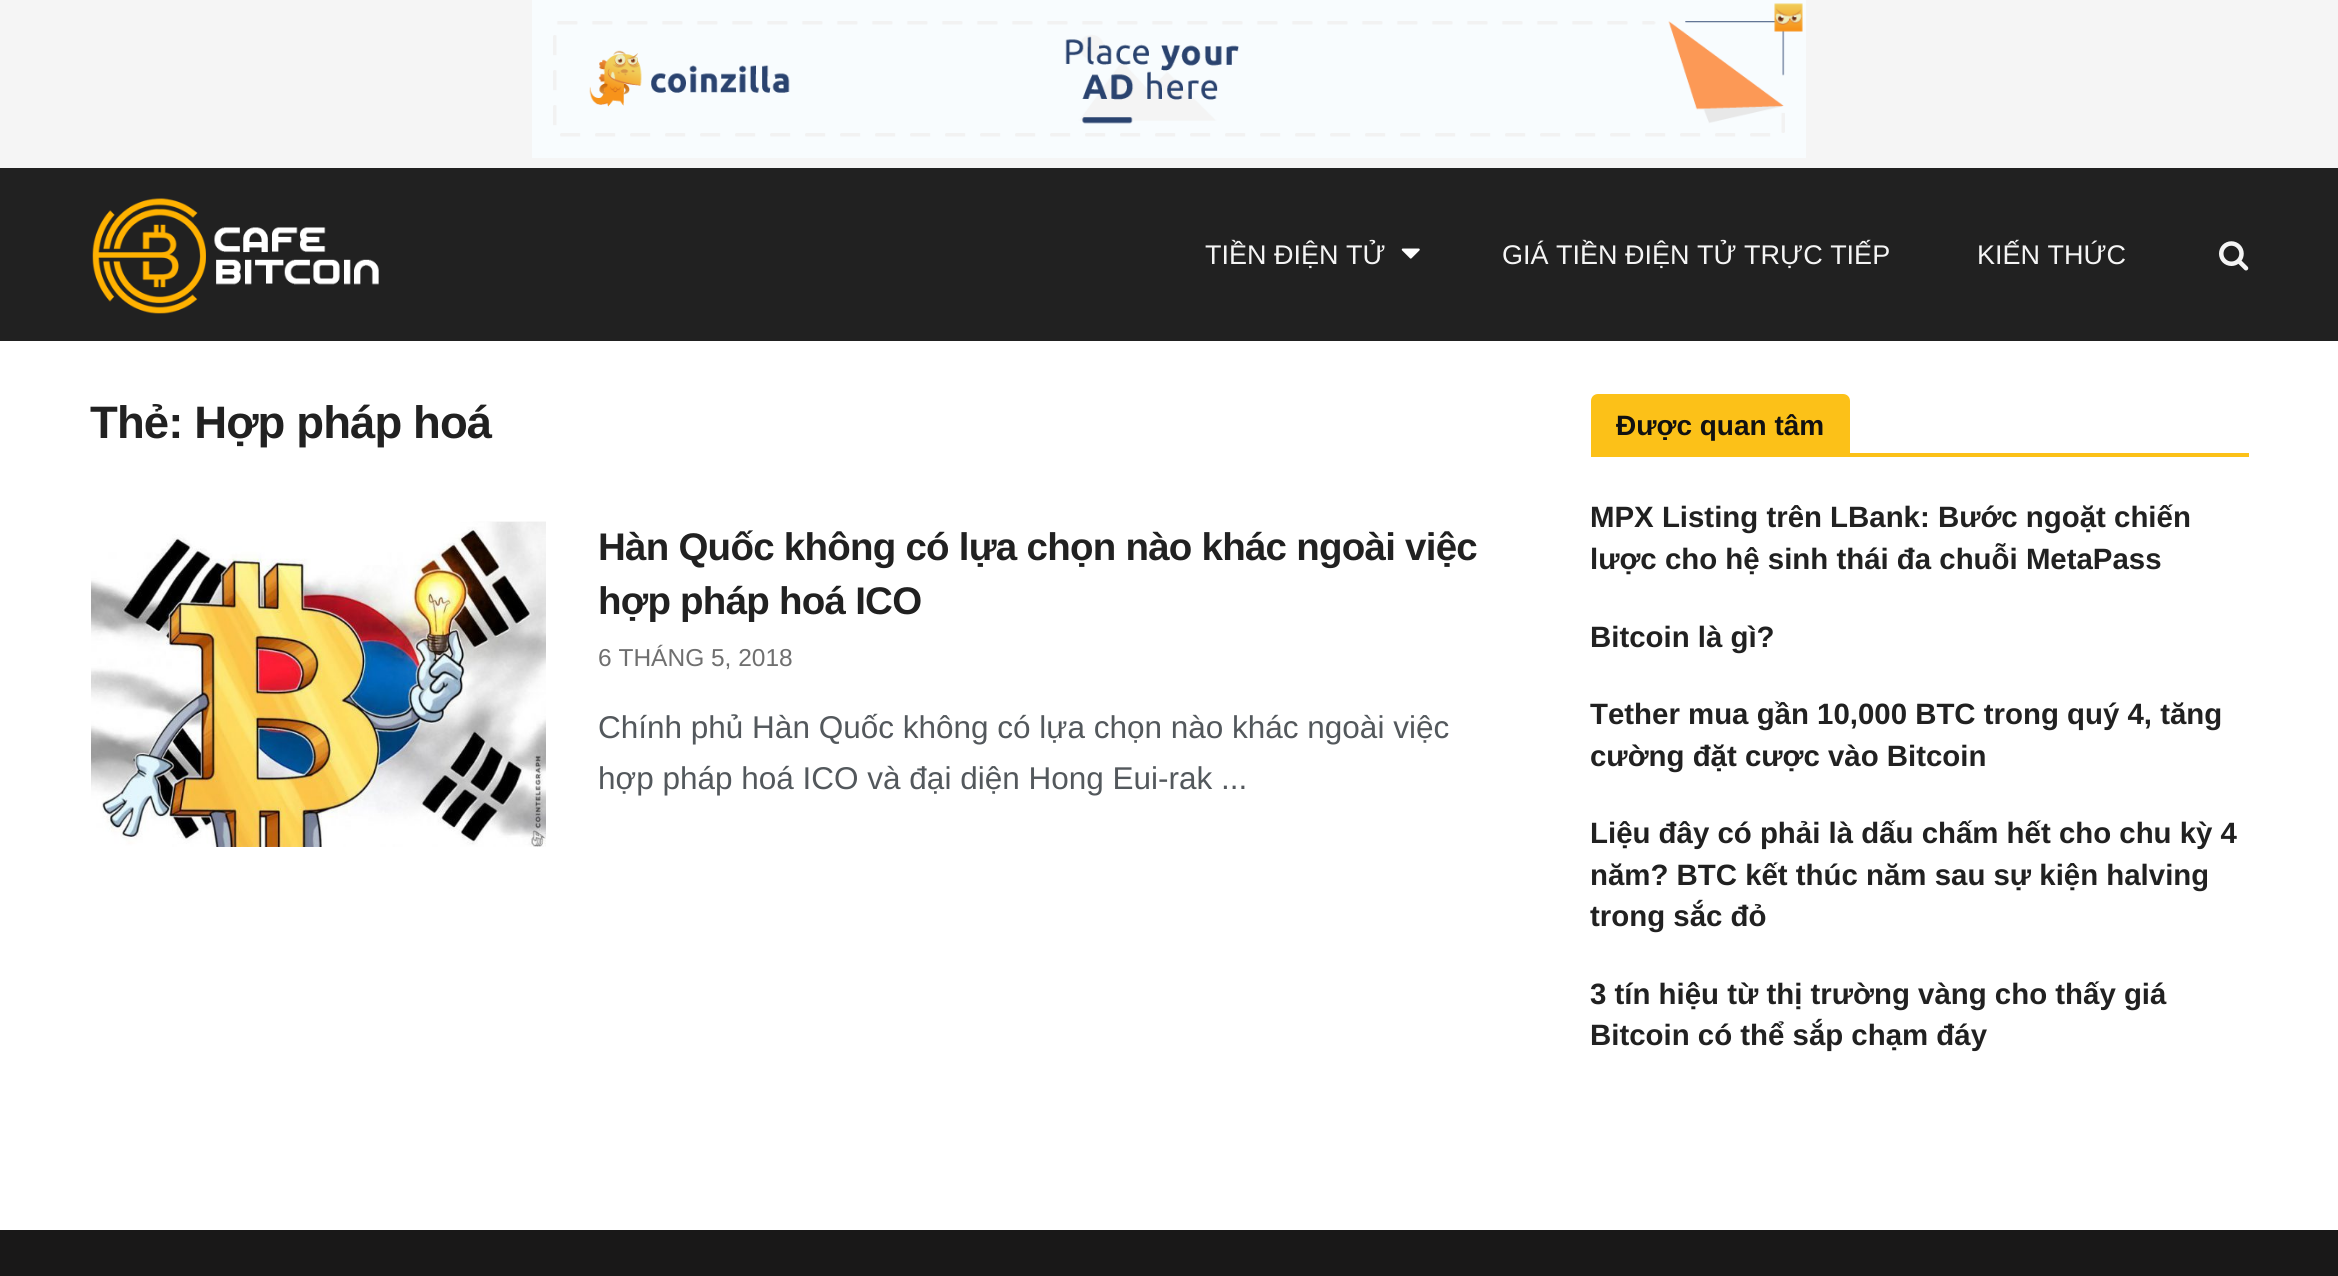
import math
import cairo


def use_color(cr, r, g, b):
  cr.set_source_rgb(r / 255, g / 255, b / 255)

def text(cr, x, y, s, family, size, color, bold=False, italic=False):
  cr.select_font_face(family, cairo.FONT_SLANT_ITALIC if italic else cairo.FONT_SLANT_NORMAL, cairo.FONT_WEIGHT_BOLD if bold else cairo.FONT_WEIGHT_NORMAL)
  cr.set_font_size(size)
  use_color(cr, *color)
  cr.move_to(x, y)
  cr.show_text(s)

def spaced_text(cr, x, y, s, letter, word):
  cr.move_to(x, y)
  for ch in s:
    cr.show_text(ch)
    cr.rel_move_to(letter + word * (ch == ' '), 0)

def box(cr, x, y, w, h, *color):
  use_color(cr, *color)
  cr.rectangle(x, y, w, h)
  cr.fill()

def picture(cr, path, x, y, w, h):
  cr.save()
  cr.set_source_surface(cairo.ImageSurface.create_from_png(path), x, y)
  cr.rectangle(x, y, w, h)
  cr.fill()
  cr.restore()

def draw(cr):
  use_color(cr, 255, 255, 255)
  cr.paint()
  box(cr, 0, 0, 2338, 168, 245, 245, 245)
  picture(cr, "img_01.png", 532, 0, 1274, 158)
  box(cr, 0, 168, 2338, 173, 33, 33, 33)
  picture(cr, "img_02.png", 92, 198, 287, 116)
  picture(cr, "img_03.png", 1401, 248, 19, 11)
  picture(cr, "img_04.png", 2219, 241, 30, 30)
  picture(cr, "img_06.png", 473, 521, 73, 1)
  picture(cr, "img_05.png", 91, 521, 455, 326)
  box(cr, 1850, 453, 399, 4, 252, 193, 24)
  cr.new_path()
  cr.move_to(1598, 394)
  cr.line_to(1843, 394)
  cr.curve_to(1847, 394, 1850, 397, 1850, 401)
  cr.line_to(1850, 457)
  cr.line_to(1591, 457)
  cr.line_to(1591, 401)
  cr.curve_to(1591, 397, 1594, 394, 1598, 394)
  cr.close_path()
  cr.fill()
  box(cr, 0, 1230, 2338, 46, 25, 24, 24)
  text(cr, 1205, 264, "TIỀN ĐIỆN TỬ", "Liberation Sans", 27, (245, 245, 245))
  text(cr, 1502, 264, "GIÁ TIỀN ĐIỆN TỬ TRỰC TIẾP", "Liberation Sans", 27, (245, 245, 245))
  text(cr, 1977, 264, "KIẾN THỨC", "Liberation Sans", 27, (245, 245, 245))
  cr.select_font_face("Liberation Sans", cairo.FONT_SLANT_NORMAL, cairo.FONT_WEIGHT_BOLD)
  cr.set_font_size(45.5)
  use_color(cr, 33, 33, 33)
  spaced_text(cr, 90, 438, "Thẻ: Hợp pháp hoá", -0.9, 0)
  cr.set_font_size(38.5)
  spaced_text(cr, 598, 560, "Hàn Quốc không có lựa chọn nào khác ngoài việc", -0.75, 0)
  spaced_text(cr, 598, 614, "hợp pháp hoá ICO", -0.75, 0)
  cr.save()
  cr.rectangle(599, 522, 913, 283)
  cr.clip()
  text(cr, 598, 666, "6 THÁNG 5, 2018", "Liberation Sans", 24.5, (111, 111, 111))
  cr.restore()
  text(cr, 598, 738, "Chính phủ Hàn Quốc không có lựa chọn nào khác ngoài việc", "Liberation Sans", 31.5, (83, 88, 92))
  text(cr, 598, 789, "hợp pháp hoá ICO và đại diện Hong Eui-rak ...", "Liberation Sans", 31.5, (83, 88, 92))
  text(cr, 1616, 435, "Được quan tâm", "Liberation Sans", 28, (17, 17, 17), bold=True)
  text(cr, 1590, 527, "MPX Listing trên LBank: Bước ngoặt chiến", "Liberation Sans", 29.4, (33, 33, 33), bold=True)
  text(cr, 1590, 569, "lược cho hệ sinh thái đa chuỗi MetaPass", "Liberation Sans", 29.4, (33, 33, 33), bold=True)
  text(cr, 1590, 647, "Bitcoin là gì?", "Liberation Sans", 29.4, (33, 33, 33), bold=True)
  text(cr, 1590, 724, "Tether mua gần 10,000 BTC trong quý 4, tăng", "Liberation Sans", 29.4, (33, 33, 33), bold=True)
  text(cr, 1590, 766, "cường đặt cược vào Bitcoin", "Liberation Sans", 29.4, (33, 33, 33), bold=True)
  text(cr, 1590, 843, "Liệu đây có phải là dấu chấm hết cho chu kỳ 4", "Liberation Sans", 29.4, (33, 33, 33), bold=True)
  text(cr, 1590, 885, "năm? BTC kết thúc năm sau sự kiện halving", "Liberation Sans", 29.4, (33, 33, 33), bold=True)
  text(cr, 1590, 926, "trong sắc đỏ", "Liberation Sans", 29.4, (33, 33, 33), bold=True)
  text(cr, 1590, 1004, "3 tín hiệu từ thị trường vàng cho thấy giá", "Liberation Sans", 29.4, (33, 33, 33), bold=True)
  text(cr, 1590, 1045, "Bitcoin có thể sắp chạm đáy", "Liberation Sans", 29.4, (33, 33, 33), bold=True)


surface = cairo.ImageSurface(cairo.FORMAT_RGB24, 2338, 1276)
cr = cairo.Context(surface)
options = cairo.FontOptions()
options.set_hint_metrics(cairo.HINT_METRICS_OFF)
options.set_hint_style(cairo.HINT_STYLE_NONE)
cr.set_font_options(options)
cr.set_miter_limit(4)
draw(cr)
surface.write_to_png("out.png")
